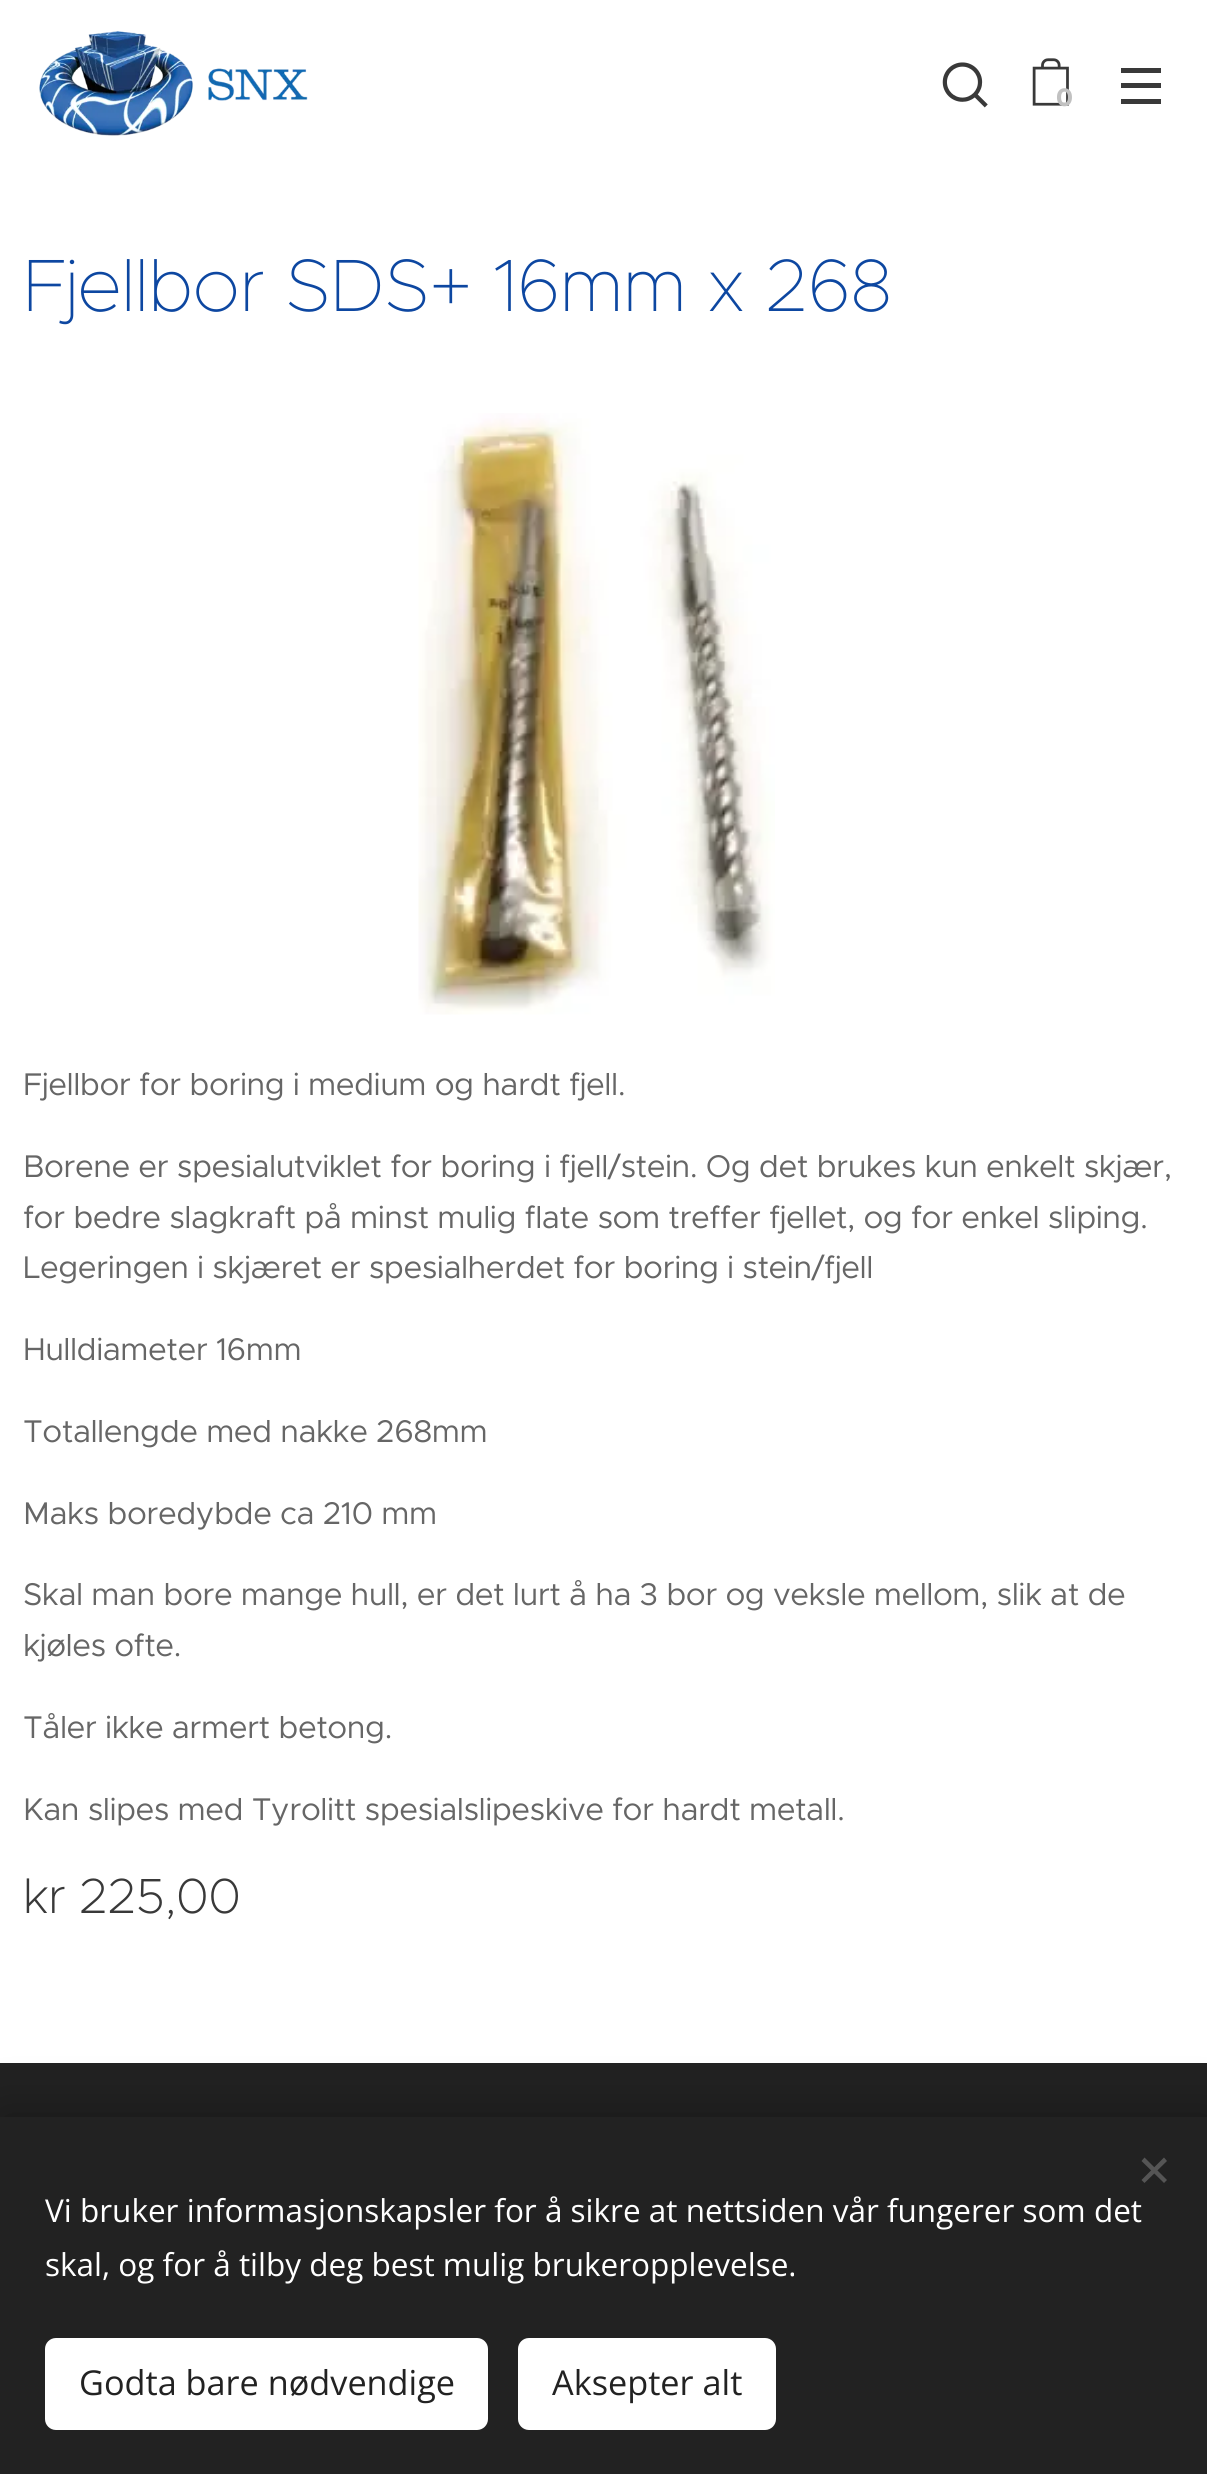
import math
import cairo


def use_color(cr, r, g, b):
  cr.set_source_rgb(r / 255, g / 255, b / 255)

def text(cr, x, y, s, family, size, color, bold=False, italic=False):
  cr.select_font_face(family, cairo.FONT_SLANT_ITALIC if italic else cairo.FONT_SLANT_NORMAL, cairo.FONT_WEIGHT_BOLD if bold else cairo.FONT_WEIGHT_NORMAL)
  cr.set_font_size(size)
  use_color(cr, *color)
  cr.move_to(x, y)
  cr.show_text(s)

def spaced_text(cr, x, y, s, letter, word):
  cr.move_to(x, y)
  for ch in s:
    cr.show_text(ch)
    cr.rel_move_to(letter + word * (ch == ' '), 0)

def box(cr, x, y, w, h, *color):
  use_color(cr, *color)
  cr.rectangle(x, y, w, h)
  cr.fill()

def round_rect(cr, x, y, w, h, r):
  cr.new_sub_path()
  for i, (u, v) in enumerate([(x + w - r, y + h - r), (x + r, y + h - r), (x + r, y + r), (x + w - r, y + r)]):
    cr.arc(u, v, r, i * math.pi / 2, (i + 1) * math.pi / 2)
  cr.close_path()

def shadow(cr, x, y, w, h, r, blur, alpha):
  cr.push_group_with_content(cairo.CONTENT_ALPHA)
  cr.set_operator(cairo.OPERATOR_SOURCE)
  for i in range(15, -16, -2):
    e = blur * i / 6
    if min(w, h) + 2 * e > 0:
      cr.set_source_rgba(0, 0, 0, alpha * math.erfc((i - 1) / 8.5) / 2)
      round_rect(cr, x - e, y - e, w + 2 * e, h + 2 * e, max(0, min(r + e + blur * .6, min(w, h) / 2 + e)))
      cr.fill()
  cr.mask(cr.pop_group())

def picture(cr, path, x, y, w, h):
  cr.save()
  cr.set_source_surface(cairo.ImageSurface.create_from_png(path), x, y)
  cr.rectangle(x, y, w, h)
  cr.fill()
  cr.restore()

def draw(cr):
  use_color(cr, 255, 255, 255)
  cr.paint()
  picture(cr, "img_01.png", 39, 31, 269, 105)
  picture(cr, "img_02.png", 942, 62, 46, 46)
  picture(cr, "img_03.png", 1032, 58, 37, 48)
  box(cr, 1121, 83, 40, 5, 57, 57, 57)
  box(cr, 1121, 68, 40, 5, 57, 57, 57)
  box(cr, 1121, 99, 40, 5, 57, 57, 57)
  picture(cr, "img_04.png", 418, 413, 357, 602)
  box(cr, 0, 2063, 1207, 54, 34, 34, 34)
  use_color(cr, 0, 0, 0)
  shadow(cr, 0, 2117, 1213, 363, 0, 28, 0.33)
  box(cr, 0, 2117, 1207, 357, 34, 34, 34)
  use_color(cr, 85, 85, 85)
  cr.new_path()
  cr.move_to(1141.5, 2180)
  cr.line_to(1164, 2157.5)
  cr.line_to(1167, 2161)
  cr.line_to(1144.5, 2183)
  cr.close_path()
  cr.fill()
  cr.new_path()
  cr.move_to(1144.5, 2157.5)
  cr.line_to(1167, 2180)
  cr.line_to(1164, 2183)
  cr.line_to(1141.5, 2161)
  cr.close_path()
  cr.fill()
  use_color(cr, 255, 255, 255)
  round_rect(cr, 45, 2338, 443, 92, 11)
  cr.fill()
  round_rect(cr, 518, 2338, 258, 92, 11)
  cr.fill()
  text(cr, 1056, 106, "0", "Montserrat", 25, (193, 193, 193), bold=True)
  cr.select_font_face("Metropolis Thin")
  cr.set_font_size(74.25)
  use_color(cr, 13, 71, 161)
  spaced_text(cr, 23, 311, "Fjellbor SDS+ 16mm x 268", -0.5, 0)
  cr.select_font_face("Metropolis")
  cr.set_font_size(31.5)
  use_color(cr, 102, 102, 102)
  spaced_text(cr, 23, 1095, "Fjellbor for boring i medium og hardt fjell.", -0.5, 0)
  spaced_text(cr, 23, 1177, "Borene er spesialutviklet for boring i fjell/stein. Og det brukes kun enkelt skjær,", -0.5, 0)
  spaced_text(cr, 23, 1228, "for bedre slagkraft på minst mulig flate som treffer fjellet, og for enkel sliping.", -0.5, 0)
  spaced_text(cr, 23, 1278, "Legeringen i skjæret er spesialherdet for boring i stein/fjell", -0.5, 0)
  spaced_text(cr, 23, 1360, "Hulldiameter 16mm", -0.5, 0)
  spaced_text(cr, 23, 1442, "Totallengde med nakke 268mm", -0.5, 0)
  spaced_text(cr, 23, 1524, "Maks boredybde ca 210 mm", -0.5, 0)
  spaced_text(cr, 23, 1605, "Skal man bore mange hull, er det lurt å ha 3 bor og veksle mellom, slik at de", -0.5, 0)
  spaced_text(cr, 23, 1656, "kjøles ofte.", -0.5, 0)
  spaced_text(cr, 23, 1738, "Tåler ikke armert betong.", -0.5, 0)
  spaced_text(cr, 23, 1820, "Kan slipes med Tyrolitt spesialslipeskive for hardt metall.", -0.5, 0)
  cr.select_font_face("Metropolis ExtraLight")
  cr.set_font_size(49.5)
  use_color(cr, 57, 57, 57)
  spaced_text(cr, 23, 1913, "kr 225,00", -0.5, 0)
  text(cr, 45, 2222, "Vi bruker informasjonskapsler for å sikre at nettsiden vår fungerer som det", "Open Sans", 31.5, (255, 255, 255))
  text(cr, 45, 2276, "skal, og for å tilby deg best mulig brukeropplevelse.", "Open Sans", 31.5, (255, 255, 255))
  text(cr, 79, 2395, "Godta bare nødvendige", "Open Sans", 34.25, (34, 34, 34))
  text(cr, 552, 2395, "Aksepter alt", "Open Sans", 34.25, (34, 34, 34))


surface = cairo.ImageSurface(cairo.FORMAT_RGB24, 1207, 2474)
cr = cairo.Context(surface)
options = cairo.FontOptions()
options.set_hint_metrics(cairo.HINT_METRICS_OFF)
options.set_hint_style(cairo.HINT_STYLE_NONE)
cr.set_font_options(options)
cr.set_miter_limit(4)
draw(cr)
surface.write_to_png("out.png")
